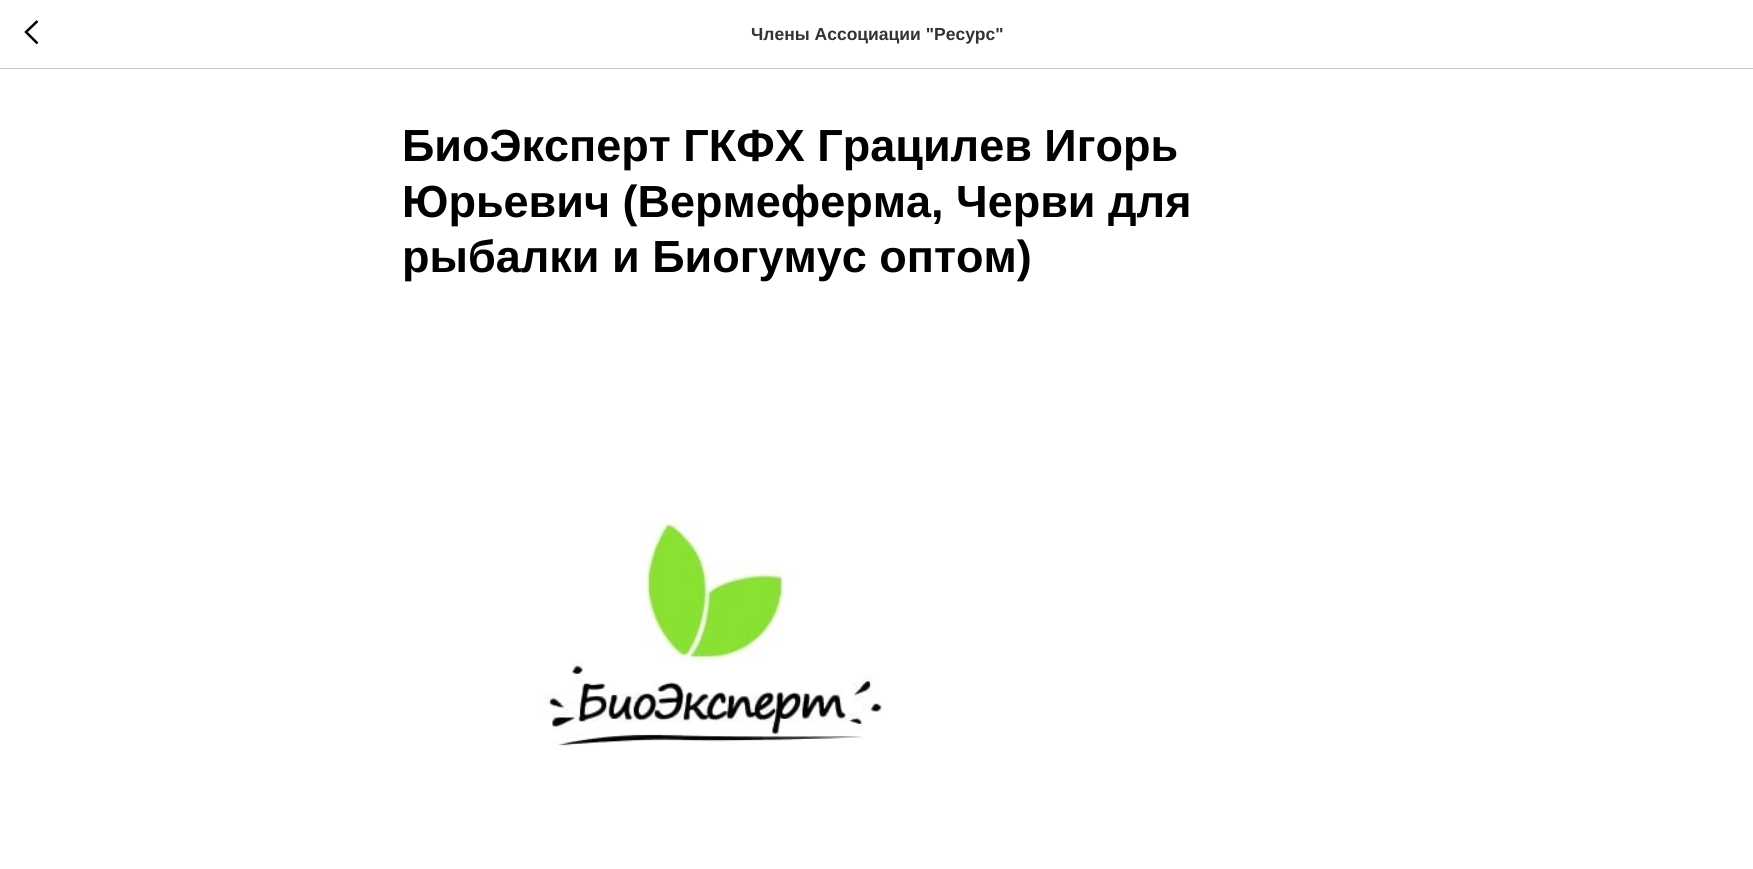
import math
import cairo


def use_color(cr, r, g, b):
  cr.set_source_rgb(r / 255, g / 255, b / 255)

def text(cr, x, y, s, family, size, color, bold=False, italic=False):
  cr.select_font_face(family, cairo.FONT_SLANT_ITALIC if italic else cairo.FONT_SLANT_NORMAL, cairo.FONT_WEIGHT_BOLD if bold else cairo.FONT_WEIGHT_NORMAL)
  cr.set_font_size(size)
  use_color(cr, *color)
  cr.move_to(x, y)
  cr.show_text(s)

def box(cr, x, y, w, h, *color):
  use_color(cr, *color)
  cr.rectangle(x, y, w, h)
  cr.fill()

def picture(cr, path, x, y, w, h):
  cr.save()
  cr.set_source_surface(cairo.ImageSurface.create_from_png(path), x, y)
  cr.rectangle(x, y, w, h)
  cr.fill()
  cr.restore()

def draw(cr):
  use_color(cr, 255, 255, 255)
  cr.paint()
  box(cr, 0, 68, 1753, 1, 204, 204, 204)
  cr.new_path()
  cr.move_to(37.5, 43.5)
  cr.line_to(26, 32)
  cr.line_to(37.5, 21)
  use_color(cr, 0, 0, 0)
  cr.set_line_width(2.5)
  cr.stroke()
  picture(cr, "img_01.png", 543, 521, 339, 229)
  text(cr, 751, 40, "Члены Ассоциации \"Ресурс\"", "Liberation Sans", 17.5, (51, 51, 51), bold=True)
  text(cr, 402, 161, "БиоЭксперт ГКФХ Грацилев Игорь", "Liberation Sans", 45, (0, 0, 0), bold=True)
  text(cr, 402, 217, "Юрьевич (Вермеферма, Черви для", "Liberation Sans", 45, (0, 0, 0), bold=True)
  text(cr, 402, 272, "рыбалки и Биогумус оптом)", "Liberation Sans", 45, (0, 0, 0), bold=True)


surface = cairo.ImageSurface(cairo.FORMAT_RGB24, 1753, 869)
cr = cairo.Context(surface)
options = cairo.FontOptions()
options.set_hint_metrics(cairo.HINT_METRICS_OFF)
options.set_hint_style(cairo.HINT_STYLE_NONE)
cr.set_font_options(options)
cr.set_miter_limit(4)
draw(cr)
surface.write_to_png("out.png")
